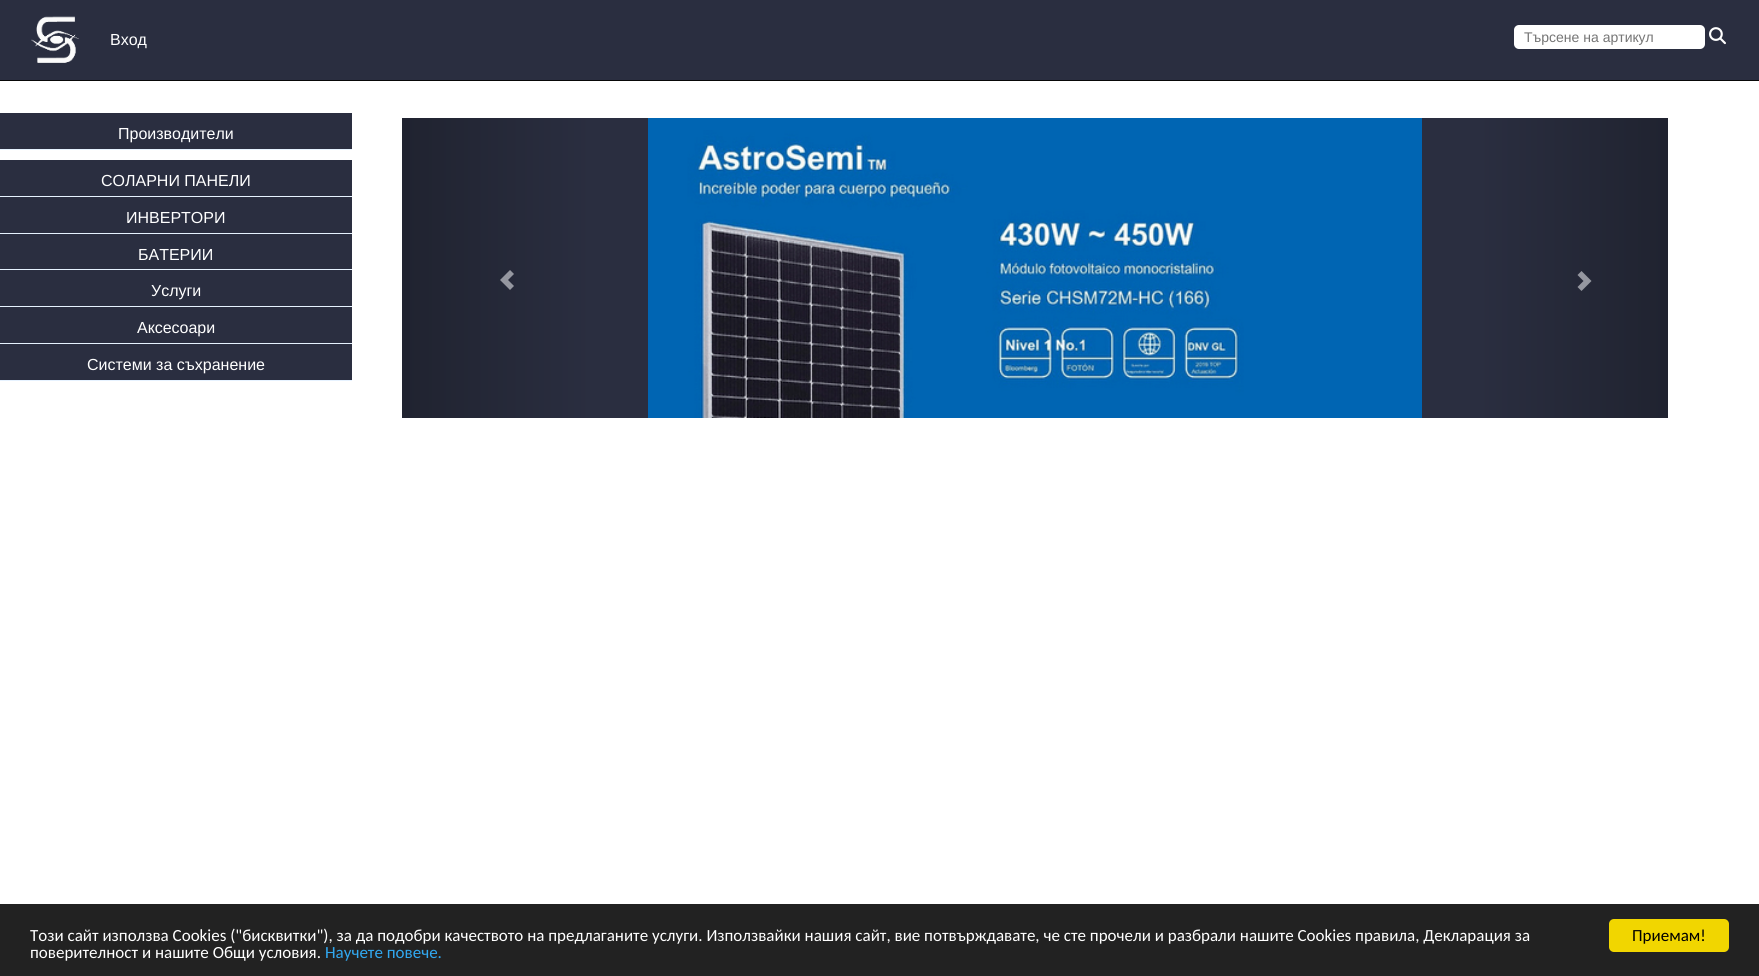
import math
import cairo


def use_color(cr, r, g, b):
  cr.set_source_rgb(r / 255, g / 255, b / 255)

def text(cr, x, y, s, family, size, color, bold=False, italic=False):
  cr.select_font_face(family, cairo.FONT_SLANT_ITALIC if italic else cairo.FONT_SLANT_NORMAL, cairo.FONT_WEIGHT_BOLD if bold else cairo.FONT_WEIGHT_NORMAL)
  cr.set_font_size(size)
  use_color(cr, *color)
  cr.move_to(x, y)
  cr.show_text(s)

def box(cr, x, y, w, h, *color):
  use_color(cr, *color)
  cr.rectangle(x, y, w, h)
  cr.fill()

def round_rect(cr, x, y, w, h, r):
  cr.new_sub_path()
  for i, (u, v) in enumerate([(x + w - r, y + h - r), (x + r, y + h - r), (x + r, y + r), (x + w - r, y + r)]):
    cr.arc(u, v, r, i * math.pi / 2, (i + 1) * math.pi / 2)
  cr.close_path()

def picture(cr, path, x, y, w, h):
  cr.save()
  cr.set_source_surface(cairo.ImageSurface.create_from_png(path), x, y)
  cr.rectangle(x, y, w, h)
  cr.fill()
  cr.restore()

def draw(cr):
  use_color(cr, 255, 255, 255)
  cr.paint()
  box(cr, 0, 0, 1759, 80, 42, 46, 64)
  box(cr, 0, 80, 1759, 1, 8, 8, 8)
  picture(cr, "img_01.png", 31, 16, 48, 47)
  use_color(cr, 255, 255, 255)
  round_rect(cr, 1514, 25, 191, 24, 5)
  cr.fill()
  picture(cr, "img_02.png", 1709, 27, 17, 18)
  box(cr, 0, 113, 352, 36, 42, 46, 64)
  box(cr, 0, 149, 352, 1, 230, 242, 255)
  box(cr, 0, 160, 352, 36, 42, 46, 64)
  box(cr, 0, 196, 352, 1, 230, 242, 255)
  box(cr, 0, 197, 352, 36, 42, 46, 64)
  box(cr, 0, 233, 352, 1, 230, 242, 255)
  box(cr, 0, 234, 352, 35, 42, 46, 64)
  box(cr, 0, 269, 352, 1, 230, 242, 255)
  box(cr, 0, 270, 352, 36, 42, 46, 64)
  box(cr, 0, 306, 352, 1, 230, 242, 255)
  box(cr, 0, 307, 352, 36, 42, 46, 64)
  box(cr, 0, 343, 352, 1, 230, 242, 255)
  box(cr, 0, 344, 352, 36, 42, 46, 64)
  box(cr, 0, 380, 352, 1, 230, 242, 255)
  gradient = cairo.LinearGradient(402, 268, 592, 268)
  gradient.add_color_stop_rgba(0, 0.125, 0.137, 0.188, 1)
  gradient.add_color_stop_rgba(1, 0.165, 0.18, 0.251, 1)
  cr.set_source(gradient)
  cr.rectangle(402, 118, 190, 300)
  cr.fill()
  use_color(cr, 149, 151, 160)
  cr.new_path()
  cr.move_to(510, 290)
  cr.line_to(514, 286)
  cr.line_to(508, 280)
  cr.line_to(514, 274)
  cr.line_to(510, 270)
  cr.line_to(500, 280)
  cr.close_path()
  cr.fill()
  box(cr, 592, 118, 886, 300, 42, 46, 64)
  picture(cr, "img_03.png", 648, 118, 774, 300)
  gradient = cairo.LinearGradient(1478, 268, 1668, 268)
  gradient.add_color_stop_rgba(0, 0.165, 0.18, 0.251, 1)
  gradient.add_color_stop_rgba(1, 0.125, 0.137, 0.188, 1)
  cr.set_source(gradient)
  cr.rectangle(1478, 118, 190, 300)
  cr.fill()
  use_color(cr, 149, 151, 160)
  cr.new_path()
  cr.move_to(1581.5, 291)
  cr.line_to(1577.5, 287)
  cr.line_to(1583.5, 281)
  cr.line_to(1577.5, 275)
  cr.line_to(1581.5, 271)
  cr.line_to(1591.5, 281)
  cr.close_path()
  cr.fill()
  box(cr, 0, 904, 1759, 72, 34, 34, 34)
  use_color(cr, 241, 214, 0)
  round_rect(cr, 1609, 919, 120, 33, 5)
  cr.fill()
  text(cr, 110, 45, "Вход", "Liberation Sans", 16, (255, 255, 255))
  text(cr, 1524, 42, "Търсене на артикул", "Liberation Sans", 14, (117, 117, 117))
  text(cr, 118, 139, "Производители", "Liberation Sans", 16, (255, 255, 255))
  text(cr, 101, 186, "СОЛАРНИ ПАНЕЛИ", "Liberation Sans", 16, (255, 255, 255))
  text(cr, 126, 223, "ИНВЕРТОРИ", "Liberation Sans", 16, (255, 255, 255))
  text(cr, 138, 260, "БАТЕРИИ", "Liberation Sans", 16, (255, 255, 255))
  text(cr, 151, 296, "Услуги", "Liberation Sans", 16, (255, 255, 255))
  text(cr, 137, 333, "Аксесоари", "Liberation Sans", 16, (255, 255, 255))
  text(cr, 87, 370, "Системи за съхранение", "Liberation Sans", 16, (255, 255, 255))
  text(cr, 30, 941, "Този сайт използва Cookies (\"бисквитки\"), за да подобри качеството на предлаганите услуги. Използвайки нашия сайт, вие потвърждавате, че сте прочели и разбрали нашите Cookies правила, Декларация за", "Carlito", 17, (255, 255, 255))
  text(cr, 30, 958, "поверителност и нашите Общи условия.", "Carlito", 17, (255, 255, 255))
  text(cr, 325, 958, "Научете повече.", "Carlito", 17, (49, 168, 240))
  text(cr, 1632, 941, "Приемам!", "Carlito", 17, (0, 0, 0))


surface = cairo.ImageSurface(cairo.FORMAT_RGB24, 1759, 976)
cr = cairo.Context(surface)
options = cairo.FontOptions()
options.set_hint_metrics(cairo.HINT_METRICS_OFF)
options.set_hint_style(cairo.HINT_STYLE_NONE)
cr.set_font_options(options)
cr.set_miter_limit(4)
draw(cr)
surface.write_to_png("out.png")
